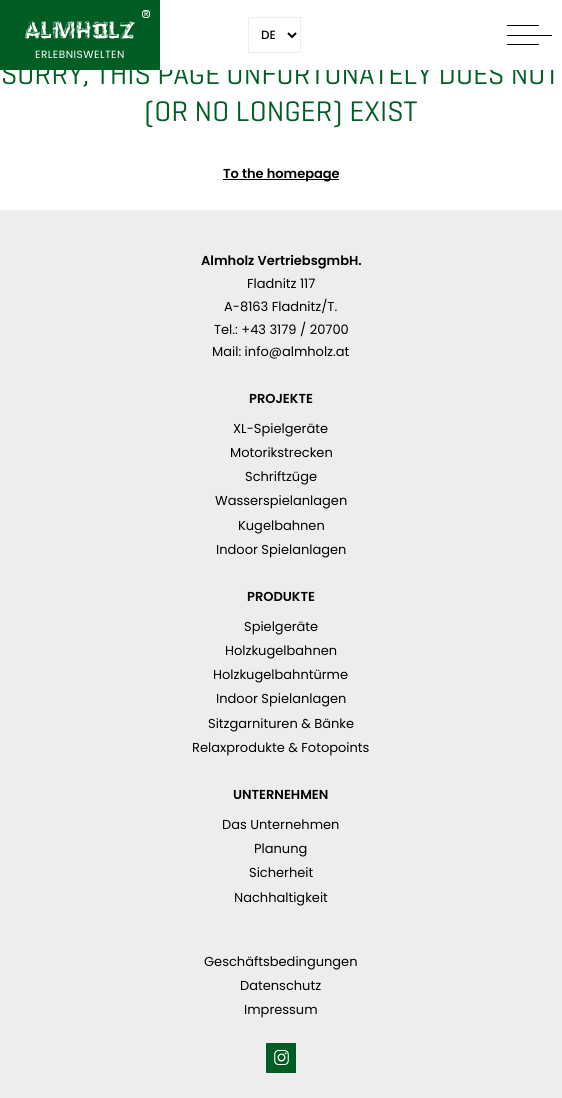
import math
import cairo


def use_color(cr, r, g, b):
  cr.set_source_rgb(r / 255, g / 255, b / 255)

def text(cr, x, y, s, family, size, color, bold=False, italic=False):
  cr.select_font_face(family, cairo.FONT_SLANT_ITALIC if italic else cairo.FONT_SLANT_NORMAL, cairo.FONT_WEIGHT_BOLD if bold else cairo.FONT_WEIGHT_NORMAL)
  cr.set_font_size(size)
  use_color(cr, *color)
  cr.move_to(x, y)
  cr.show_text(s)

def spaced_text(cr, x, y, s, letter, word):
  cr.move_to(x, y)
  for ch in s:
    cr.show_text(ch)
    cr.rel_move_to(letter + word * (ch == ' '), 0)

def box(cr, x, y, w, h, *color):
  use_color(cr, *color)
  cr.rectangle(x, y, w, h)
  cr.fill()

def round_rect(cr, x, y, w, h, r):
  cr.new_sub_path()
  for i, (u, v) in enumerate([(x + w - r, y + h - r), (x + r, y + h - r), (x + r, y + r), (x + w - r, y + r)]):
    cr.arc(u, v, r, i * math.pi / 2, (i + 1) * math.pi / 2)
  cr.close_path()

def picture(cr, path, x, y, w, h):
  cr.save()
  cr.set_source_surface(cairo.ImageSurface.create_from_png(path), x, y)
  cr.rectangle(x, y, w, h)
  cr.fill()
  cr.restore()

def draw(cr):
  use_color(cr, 255, 255, 255)
  cr.paint()
  box(cr, 0, 0, 160, 70, 0, 94, 36)
  picture(cr, "img_01.png", 25, 21, 110, 18)
  round_rect(cr, 142.5, 10.5, 7, 7, 2.5)
  use_color(cr, 255, 255, 255)
  cr.set_line_width(1)
  cr.stroke()
  cr.rectangle(248.5, 17.5, 52, 35)
  use_color(cr, 237, 237, 237)
  cr.stroke()
  cr.new_path()
  cr.move_to(288, 33)
  cr.line_to(292, 37)
  cr.line_to(296, 33)
  use_color(cr, 0, 0, 0)
  cr.set_line_width(2)
  cr.stroke()
  box(cr, 507, 25, 32, 1, 0, 0, 0)
  box(cr, 507, 35, 45, 1, 0, 0, 0)
  box(cr, 507, 44, 32, 1, 0, 0, 0)
  box(cr, 223, 179, 116, 1, 0, 0, 0)
  box(cr, 0, 210, 562, 888, 237, 237, 237)
  box(cr, 266, 1043, 30, 30, 0, 94, 36)
  picture(cr, "img_02.png", 274, 1050, 15, 15)
  text(cr, 144, 16, "R", "Poppins Medium", 7, (255, 255, 255))
  cr.select_font_face("Poppins")
  cr.set_font_size(10.5)
  spaced_text(cr, 35, 58, "ERLEBNISWELTEN", 0.5, 0)
  text(cr, 261, 39, "DE", "Poppins Medium", 12, (0, 0, 0))
  text(cr, 1, 84, "SORRY, THIS PAGE UNFORTUNATELY DOES NOT", "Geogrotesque", 28.75, (0, 94, 36))
  box(cr, 160, 64, 401, 6, 255, 255, 255)
  text(cr, 144, 121, "(OR NO LONGER) EXIST", "Geogrotesque", 28.75, (0, 94, 36))
  text(cr, 223, 178, "To the homepage", "Poppins SemiBold", 13, (0, 0, 0))
  text(cr, 201, 265, "Almholz VertriebsgmbH.", "Poppins SemiBold", 13, (0, 0, 0))
  text(cr, 247, 288, "Fladnitz 117", "Poppins", 13, (0, 0, 0))
  text(cr, 224, 311, "A-8163 Fladnitz/T.", "Poppins", 13, (0, 0, 0))
  text(cr, 214, 334, "Tel.: +43 3179 / 20700", "Poppins", 13, (0, 0, 0))
  text(cr, 212, 356, "Mail: info@almholz.at", "Poppins", 13, (0, 0, 0))
  text(cr, 249, 403, "PROJEKTE", "Poppins SemiBold", 13, (0, 0, 0))
  text(cr, 233, 433, "XL-Spielgeräte", "Poppins", 13, (0, 0, 0))
  text(cr, 230, 457, "Motorikstrecken", "Poppins", 13, (0, 0, 0))
  text(cr, 245, 481, "Schriftzüge", "Poppins", 13, (0, 0, 0))
  text(cr, 215, 505, "Wasserspielanlagen", "Poppins", 13, (0, 0, 0))
  text(cr, 238, 530, "Kugelbahnen", "Poppins", 13, (0, 0, 0))
  text(cr, 216, 554, "Indoor Spielanlagen", "Poppins", 13, (0, 0, 0))
  text(cr, 247, 601, "PRODUKTE", "Poppins SemiBold", 13, (0, 0, 0))
  text(cr, 244, 631, "Spielgeräte", "Poppins", 13, (0, 0, 0))
  text(cr, 225, 655, "Holzkugelbahnen", "Poppins", 13, (0, 0, 0))
  text(cr, 213, 679, "Holzkugelbahntürme", "Poppins", 13, (0, 0, 0))
  text(cr, 216, 703, "Indoor Spielanlagen", "Poppins", 13, (0, 0, 0))
  text(cr, 208, 728, "Sitzgarnituren & Bänke", "Poppins", 13, (0, 0, 0))
  text(cr, 192, 752, "Relaxprodukte & Fotopoints", "Poppins", 13, (0, 0, 0))
  text(cr, 233, 799, "UNTERNEHMEN", "Poppins SemiBold", 13, (0, 0, 0))
  text(cr, 222, 829, "Das Unternehmen", "Poppins", 13, (0, 0, 0))
  text(cr, 254, 853, "Planung", "Poppins", 13, (0, 0, 0))
  text(cr, 249, 877, "Sicherheit", "Poppins", 13, (0, 0, 0))
  text(cr, 234, 902, "Nachhaltigkeit", "Poppins", 13, (0, 0, 0))
  text(cr, 204, 966, "Geschäftsbedingungen", "Poppins", 13, (0, 0, 0))
  text(cr, 240, 990, "Datenschutz", "Poppins", 13, (0, 0, 0))
  text(cr, 244, 1014, "Impressum", "Poppins", 13, (0, 0, 0))


surface = cairo.ImageSurface(cairo.FORMAT_RGB24, 562, 1098)
cr = cairo.Context(surface)
options = cairo.FontOptions()
options.set_hint_metrics(cairo.HINT_METRICS_OFF)
options.set_hint_style(cairo.HINT_STYLE_NONE)
cr.set_font_options(options)
cr.set_miter_limit(4)
draw(cr)
surface.write_to_png("out.png")
